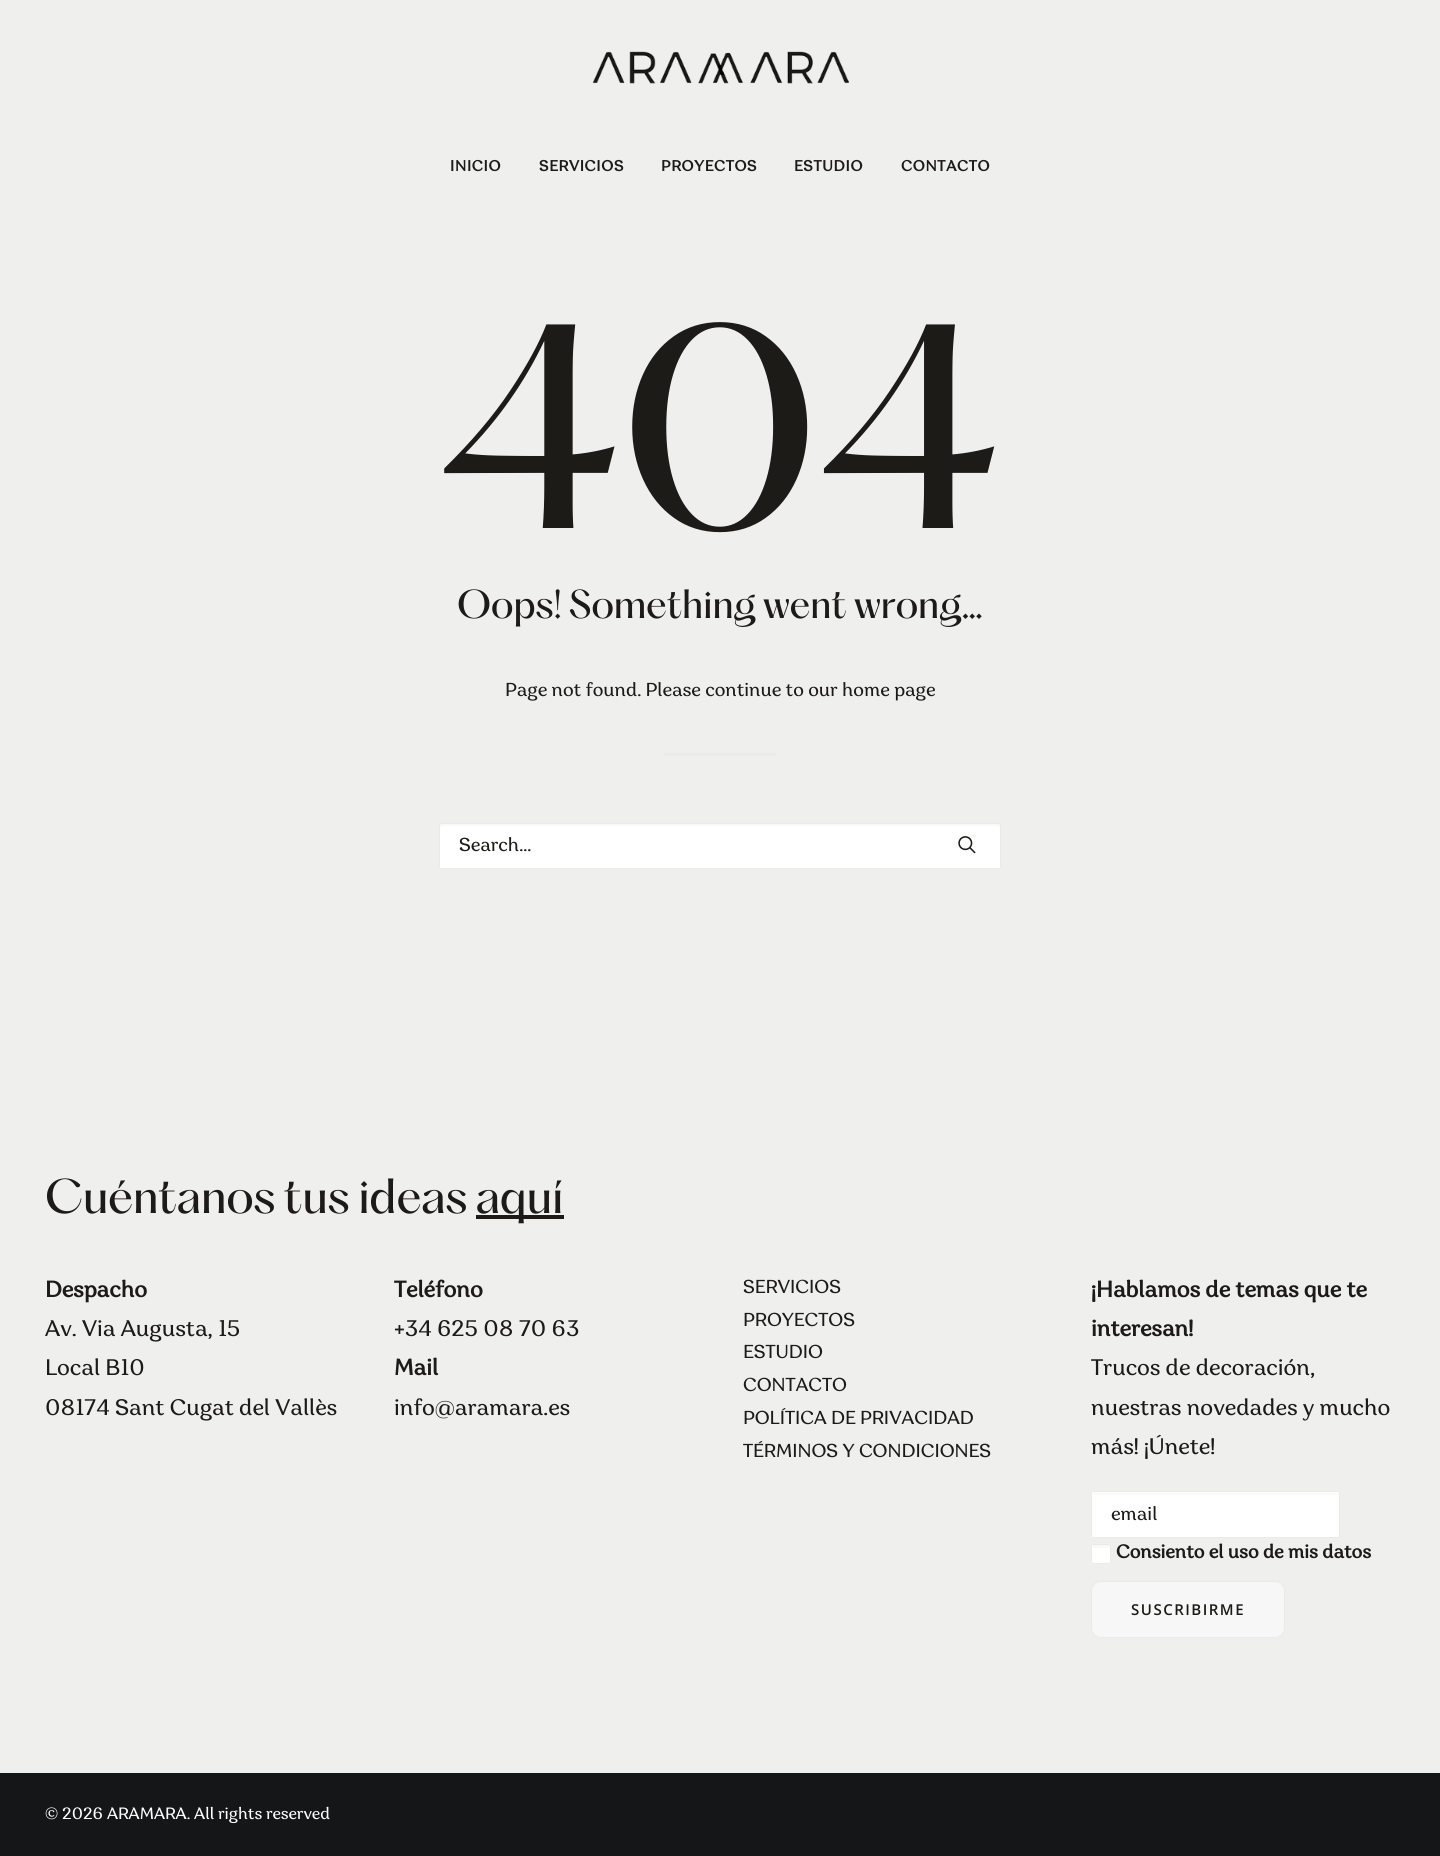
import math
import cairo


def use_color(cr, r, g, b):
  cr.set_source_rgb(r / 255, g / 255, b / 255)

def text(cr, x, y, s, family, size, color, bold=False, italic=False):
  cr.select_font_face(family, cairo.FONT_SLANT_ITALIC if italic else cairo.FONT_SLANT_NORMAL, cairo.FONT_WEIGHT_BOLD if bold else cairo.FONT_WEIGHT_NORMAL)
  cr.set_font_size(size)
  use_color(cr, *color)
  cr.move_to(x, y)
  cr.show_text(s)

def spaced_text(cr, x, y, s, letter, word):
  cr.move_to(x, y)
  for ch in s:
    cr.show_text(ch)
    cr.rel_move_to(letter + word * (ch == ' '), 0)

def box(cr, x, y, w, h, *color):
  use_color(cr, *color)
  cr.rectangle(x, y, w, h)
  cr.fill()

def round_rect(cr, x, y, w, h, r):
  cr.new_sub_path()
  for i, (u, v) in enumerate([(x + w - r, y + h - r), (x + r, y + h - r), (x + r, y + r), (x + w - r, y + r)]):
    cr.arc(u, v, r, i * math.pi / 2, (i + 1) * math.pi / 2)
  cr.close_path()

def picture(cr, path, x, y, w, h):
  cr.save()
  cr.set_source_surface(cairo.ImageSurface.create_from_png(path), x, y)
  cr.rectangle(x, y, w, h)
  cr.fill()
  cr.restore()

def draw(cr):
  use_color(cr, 239, 239, 238)
  cr.paint()
  picture(cr, "img_01.png", 592, 51, 257, 33)
  box(cr, 664, 753, 112, 3, 234, 234, 234)
  use_color(cr, 255, 255, 255)
  round_rect(cr, 439, 823, 562, 46, 2.5)
  cr.fill()
  use_color(cr, 249, 249, 249)
  cr.new_path()
  cr.move_to(441, 826)
  cr.line_to(999, 826)
  cr.line_to(1000, 828)
  cr.curve_to(1000, 827, 1001, 824, 999, 824)
  cr.line_to(440, 824)
  cr.line_to(440, 828)
  cr.close_path()
  cr.fill()
  round_rect(cr, 439.5, 823.5, 561, 45, 2)
  use_color(cr, 234, 234, 234)
  cr.set_line_width(1)
  cr.stroke()
  picture(cr, "img_02.png", 958, 836, 18, 18)
  box(cr, 476, 1215, 88, 4, 28, 27, 24)
  use_color(cr, 255, 255, 255)
  round_rect(cr, 1091, 1491, 249, 47, 2.5)
  cr.fill()
  use_color(cr, 249, 249, 249)
  cr.new_path()
  cr.move_to(1094, 1495)
  cr.line_to(1338, 1495)
  cr.line_to(1339, 1496)
  cr.line_to(1339, 1494)
  cr.curve_to(1339, 1493, 1339, 1493, 1338, 1493)
  cr.line_to(1094, 1493)
  cr.curve_to(1093, 1493, 1093, 1493, 1093, 1494)
  cr.line_to(1093, 1495)
  cr.close_path()
  cr.fill()
  round_rect(cr, 1091.5, 1491.5, 248, 46, 2)
  use_color(cr, 234, 234, 234)
  cr.stroke()
  use_color(cr, 255, 255, 255)
  round_rect(cr, 1091, 1544, 20, 20, 2.5)
  cr.fill()
  use_color(cr, 249, 249, 249)
  cr.set_fill_rule(cairo.FILL_RULE_EVEN_ODD)
  cr.new_path()
  cr.move_to(1094, 1548)
  cr.line_to(1108, 1548)
  cr.curve_to(1110.5, 1548, 1110, 1549, 1110, 1551)
  cr.curve_to(1110, 1543, 1111, 1545, 1101.5, 1545)
  cr.line_to(1096.5, 1545)
  cr.curve_to(1092.5, 1545, 1093, 1545, 1093, 1549)
  cr.curve_to(1093, 1548.5, 1093.5, 1548, 1094, 1548)
  cr.close_path()
  cr.move_to(1110, 1561)
  cr.line_to(1110, 1562)
  cr.close_path()
  cr.fill()
  round_rect(cr, 1091.5, 1544.5, 19, 19, 2)
  use_color(cr, 234, 234, 234)
  cr.stroke()
  use_color(cr, 247, 247, 247)
  round_rect(cr, 1091.5, 1581.5, 193, 56, 9.5)
  cr.fill_preserve()
  use_color(cr, 234, 234, 234)
  cr.stroke()
  box(cr, 0, 1773, 1440, 83, 20, 22, 24)
  cr.select_font_face("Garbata", cairo.FONT_SLANT_NORMAL, cairo.FONT_WEIGHT_BOLD)
  cr.set_font_size(15)
  use_color(cr, 28, 27, 24)
  spaced_text(cr, 450, 171, "INICIO", 0.75, 0)
  spaced_text(cr, 539, 171, "SERVICIOS", 0.75, 0)
  spaced_text(cr, 661, 171, "PROYECTOS", 0.75, 0)
  spaced_text(cr, 794, 171, "ESTUDIO", 0.75, 0)
  spaced_text(cr, 901, 171, "CONTACTO", 0.75, 0)
  text(cr, 439, 528, "404", "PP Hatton", 260, (28, 27, 24))
  text(cr, 457, 618, "Oops! Something went wrong…", "PP Hatton", 36.25, (28, 27, 24))
  text(cr, 505, 696, "Page not found. Please continue to our home page", "Garbata", 18.75, (28, 27, 24))
  text(cr, 459, 851, "Search…", "Garbata", 18.75, (28, 27, 24))
  text(cr, 45, 1213, "Cuéntanos tus ideas", "PP Hatton", 43.75, (28, 27, 24))
  text(cr, 476, 1213, "aquí", "PP Hatton", 43.75, (28, 27, 24))
  text(cr, 45, 1297, "Despacho", "Garbata", 22.5, (28, 27, 24), bold=True)
  text(cr, 45, 1336, "Av. Via Augusta, 15", "Garbata", 22.5, (28, 27, 24))
  text(cr, 45, 1375, "Local B10", "Garbata", 22.5, (28, 27, 24))
  text(cr, 45, 1415, "08174 Sant Cugat del Vallès", "Garbata", 22.5, (28, 27, 24))
  text(cr, 394, 1297, "Teléfono", "Garbata", 22.5, (28, 27, 24), bold=True)
  text(cr, 394, 1336, "+34 625 08 70 63", "Garbata", 22.5, (28, 27, 24))
  text(cr, 394, 1375, "Mail", "Garbata", 22.5, (28, 27, 24), bold=True)
  text(cr, 394, 1415, "info@aramara.es", "Garbata", 22.5, (28, 27, 24))
  text(cr, 743, 1293, "SERVICIOS", "Garbata", 18.75, (28, 27, 24))
  text(cr, 743, 1326, "PROYECTOS", "Garbata", 18.75, (28, 27, 24))
  text(cr, 743, 1358, "ESTUDIO", "Garbata", 18.75, (28, 27, 24))
  text(cr, 743, 1391, "CONTACTO", "Garbata", 18.75, (28, 27, 24))
  text(cr, 743, 1424, "POLÍTICA DE PRIVACIDAD", "Garbata", 18.75, (28, 27, 24))
  text(cr, 743, 1457, "TÉRMINOS Y CONDICIONES", "Garbata", 18.75, (28, 27, 24))
  text(cr, 1091, 1297, "¡Hablamos de temas que te", "Garbata", 22.5, (28, 27, 24), bold=True)
  text(cr, 1091, 1336, "interesan!", "Garbata", 22.5, (28, 27, 24), bold=True)
  text(cr, 1091, 1375, "Trucos de decoración,", "Garbata", 22.5, (28, 27, 24))
  text(cr, 1091, 1415, "nuestras novedades y mucho", "Garbata", 22.5, (28, 27, 24))
  text(cr, 1091, 1454, "más! ¡Únete!", "Garbata", 22.5, (28, 27, 24))
  text(cr, 1111, 1520, "email", "Garbata", 18.75, (28, 27, 24))
  text(cr, 1116, 1558, "Consiento el uso de mis datos", "Garbata", 18.75, (28, 27, 24), bold=True)
  cr.select_font_face("Open Sans SemiBold")
  cr.set_font_size(15)
  spaced_text(cr, 1131, 1615, "SUSCRIBIRME", 1.5, 0)
  text(cr, 45, 1819, "© 2026 ARAMARA. All rights reserved", "Garbata", 16.4, (255, 255, 255))


surface = cairo.ImageSurface(cairo.FORMAT_RGB24, 1440, 1856)
cr = cairo.Context(surface)
options = cairo.FontOptions()
options.set_hint_metrics(cairo.HINT_METRICS_OFF)
options.set_hint_style(cairo.HINT_STYLE_NONE)
cr.set_font_options(options)
cr.set_miter_limit(4)
draw(cr)
surface.write_to_png("out.png")
